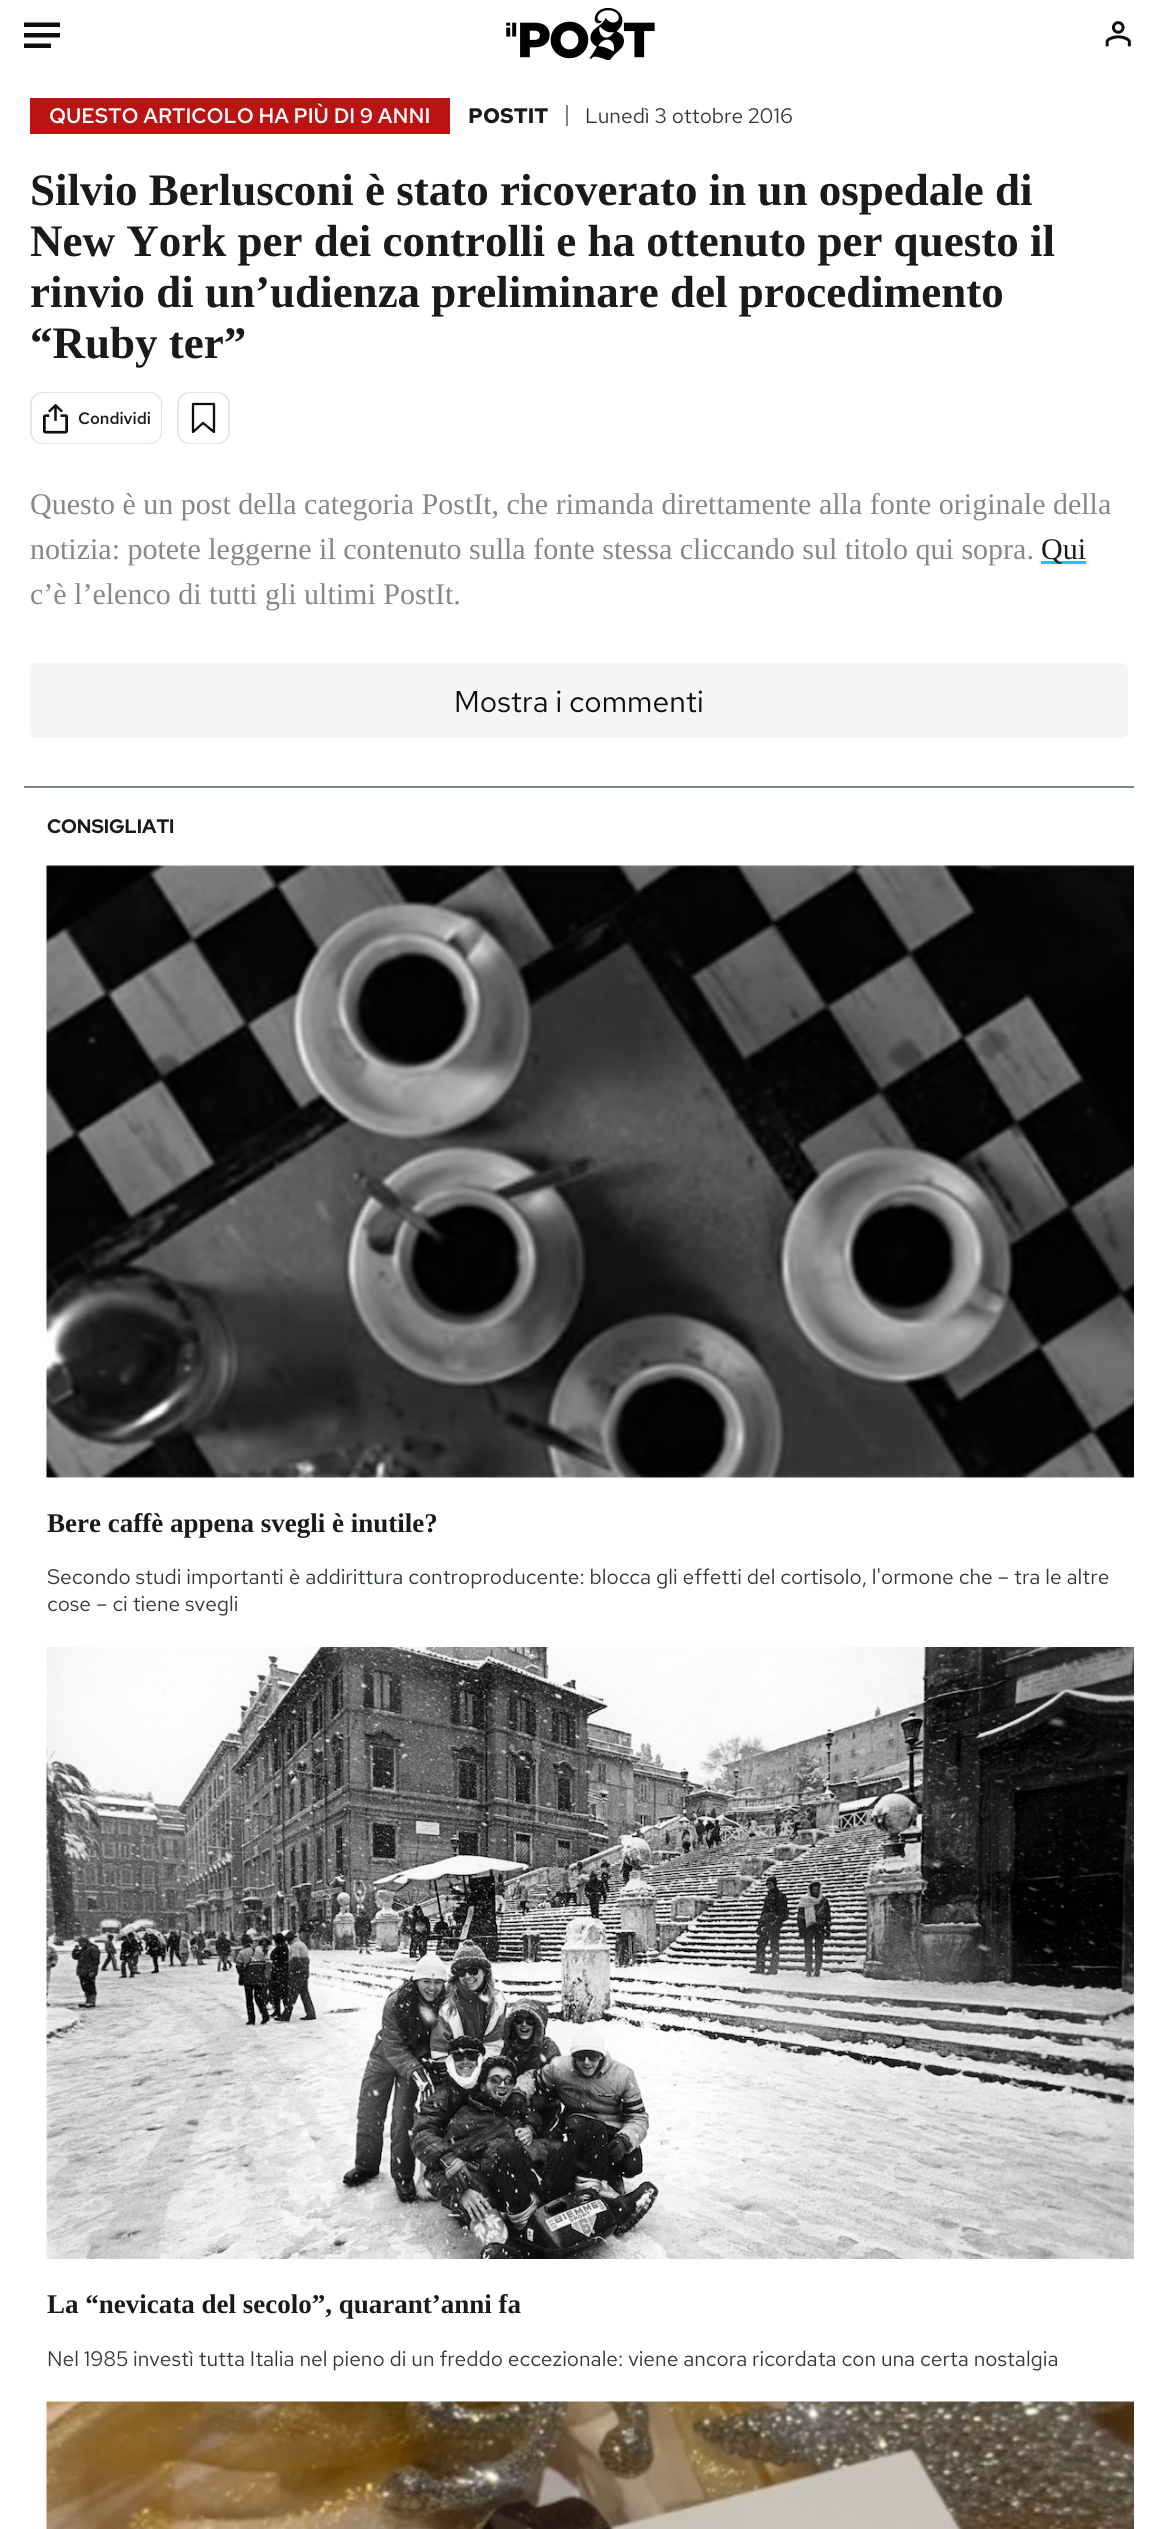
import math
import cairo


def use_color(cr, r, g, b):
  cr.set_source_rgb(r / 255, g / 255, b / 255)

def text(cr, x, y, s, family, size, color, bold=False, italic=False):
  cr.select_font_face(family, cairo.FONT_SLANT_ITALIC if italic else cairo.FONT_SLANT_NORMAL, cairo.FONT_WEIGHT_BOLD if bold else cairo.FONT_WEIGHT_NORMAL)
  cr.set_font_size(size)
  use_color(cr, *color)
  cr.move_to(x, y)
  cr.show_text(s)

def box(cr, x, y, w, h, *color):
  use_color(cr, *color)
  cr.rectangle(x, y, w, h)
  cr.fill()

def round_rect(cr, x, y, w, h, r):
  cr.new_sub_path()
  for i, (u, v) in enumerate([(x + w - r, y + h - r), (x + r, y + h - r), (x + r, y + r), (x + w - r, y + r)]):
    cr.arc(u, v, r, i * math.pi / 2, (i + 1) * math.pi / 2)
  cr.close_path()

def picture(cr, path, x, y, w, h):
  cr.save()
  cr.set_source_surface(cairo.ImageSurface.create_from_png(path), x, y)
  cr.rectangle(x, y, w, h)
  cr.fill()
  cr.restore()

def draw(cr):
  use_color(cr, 255, 255, 255)
  cr.paint()
  use_color(cr, 12, 13, 14)
  cr.new_path()
  cr.move_to(60, 33)
  cr.line_to(60, 37.5)
  cr.line_to(24, 37.5)
  cr.line_to(24, 33)
  cr.close_path()
  cr.move_to(51, 43.5)
  cr.line_to(51, 48)
  cr.line_to(24, 48)
  cr.line_to(24, 43.5)
  cr.close_path()
  cr.move_to(60, 22.5)
  cr.line_to(60, 27)
  cr.line_to(24, 27)
  cr.line_to(24, 22.5)
  cr.close_path()
  cr.fill()
  picture(cr, "img_01.png", 506, 8, 149, 52)
  picture(cr, "img_02.png", 1105, 21, 26, 26)
  box(cr, 30, 98, 420, 36, 187, 18, 18)
  box(cr, 566, 105, 2, 21, 122, 136, 139)
  round_rect(cr, 31, 393, 130, 50, 11)
  use_color(cr, 227, 231, 231)
  cr.stroke()
  use_color(cr, 255, 255, 255)
  round_rect(cr, 32, 393, 129, 50, 12)
  cr.fill()
  picture(cr, "img_03.png", 43, 404, 25, 30)
  round_rect(cr, 178, 393, 51, 50, 11)
  use_color(cr, 227, 231, 231)
  cr.stroke()
  use_color(cr, 255, 255, 255)
  round_rect(cr, 179, 393, 49, 50, 12)
  cr.fill()
  cr.new_path()
  cr.move_to(193, 432)
  cr.line_to(193, 404)
  cr.line_to(214, 404)
  cr.line_to(214, 432)
  cr.line_to(203, 423)
  cr.close_path()
  use_color(cr, 12, 13, 14)
  cr.set_line_width(2.3)
  cr.set_line_join(cairo.LINE_JOIN_ROUND)
  cr.stroke()
  box(cr, 1041, 561, 45, 3, 14, 205, 234)
  use_color(cr, 244, 246, 246)
  round_rect(cr, 30, 663, 1098, 75, 6)
  cr.fill()
  box(cr, 24, 786, 1110, 2, 122, 136, 139)
  picture(cr, "img_04.png", 46, 865, 1088, 613)
  picture(cr, "img_05.png", 46, 1647, 1088, 612)
  picture(cr, "img_06.png", 46, 2401, 1088, 128)
  text(cr, 49, 123, "QUESTO ARTICOLO HA PIÙ DI 9 ANNI", "Red Hat Text SemiBold", 21, (255, 255, 255))
  text(cr, 468, 123, "POSTIT", "Red Hat Text", 21, (25, 27, 27), bold=True)
  text(cr, 585, 123, "Lunedì 3 ottobre 2016", "Red Hat Text", 21, (50, 56, 57))
  text(cr, 30, 205, "Silvio Berlusconi è stato ricoverato in un ospedale di", "Liberation Serif", 45, (25, 27, 27), bold=True)
  text(cr, 30, 256, "New York per dei controlli e ha ottenuto per questo il", "Liberation Serif", 45, (25, 27, 27), bold=True)
  text(cr, 30, 307, "rinvio di un’udienza preliminare del procedimento", "Liberation Serif", 45, (25, 27, 27), bold=True)
  text(cr, 30, 358, "“Ruby ter”", "Liberation Serif", 45, (25, 27, 27), bold=True)
  text(cr, 78, 424, "Condividi", "Red Hat Text SemiBold", 16.5, (25, 27, 27))
  text(cr, 30, 514, "Questo è un post della categoria PostIt, che rimanda direttamente alla fonte originale della", "Liberation Serif", 30, (135, 135, 135))
  text(cr, 30, 559, "notizia: potete leggerne il contenuto sulla fonte stessa cliccando sul titolo qui sopra.", "Liberation Serif", 30, (135, 135, 135))
  text(cr, 1041, 559, "Qui", "Liberation Serif", 30, (25, 27, 27))
  text(cr, 30, 604, "c’è l’elenco di tutti gli ultimi PostIt.", "Liberation Serif", 30, (135, 135, 135))
  text(cr, 454, 712, "Mostra i commenti", "Red Hat Text", 30, (12, 13, 14))
  text(cr, 47, 833, "CONSIGLIATI", "Red Hat Display", 19.5, (25, 27, 27), bold=True)
  text(cr, 47, 1532, "Bere caffè appena svegli è inutile?", "Liberation Serif", 27, (25, 27, 27), bold=True)
  text(cr, 47, 1584, "Secondo studi importanti è addirittura controproducente: blocca gli effetti del cortisolo, l'ormone che – tra le altre", "Red Hat Text", 21, (50, 56, 57))
  text(cr, 47, 1611, "cose – ci tiene svegli", "Red Hat Text", 21, (50, 56, 57))
  text(cr, 47, 2313, "La “nevicata del secolo”, quarant’anni fa", "Liberation Serif", 27, (25, 27, 27), bold=True)
  text(cr, 47, 2366, "Nel 1985 investì tutta Italia nel pieno di un freddo eccezionale: viene ancora ricordata con una certa nostalgia", "Red Hat Text", 21, (50, 56, 57))


surface = cairo.ImageSurface(cairo.FORMAT_RGB24, 1158, 2529)
cr = cairo.Context(surface)
options = cairo.FontOptions()
options.set_hint_metrics(cairo.HINT_METRICS_OFF)
options.set_hint_style(cairo.HINT_STYLE_NONE)
cr.set_font_options(options)
cr.set_miter_limit(4)
draw(cr)
surface.write_to_png("out.png")
